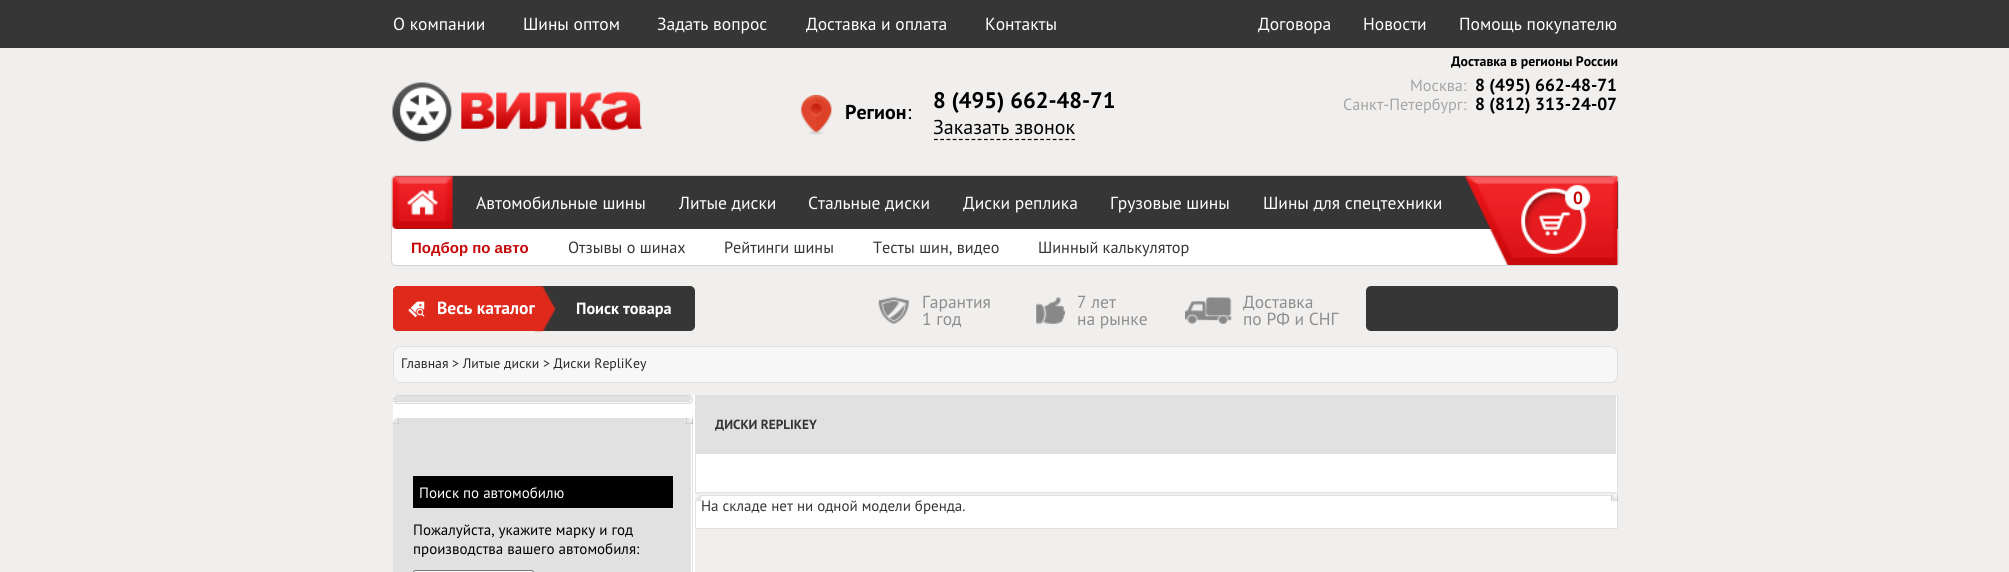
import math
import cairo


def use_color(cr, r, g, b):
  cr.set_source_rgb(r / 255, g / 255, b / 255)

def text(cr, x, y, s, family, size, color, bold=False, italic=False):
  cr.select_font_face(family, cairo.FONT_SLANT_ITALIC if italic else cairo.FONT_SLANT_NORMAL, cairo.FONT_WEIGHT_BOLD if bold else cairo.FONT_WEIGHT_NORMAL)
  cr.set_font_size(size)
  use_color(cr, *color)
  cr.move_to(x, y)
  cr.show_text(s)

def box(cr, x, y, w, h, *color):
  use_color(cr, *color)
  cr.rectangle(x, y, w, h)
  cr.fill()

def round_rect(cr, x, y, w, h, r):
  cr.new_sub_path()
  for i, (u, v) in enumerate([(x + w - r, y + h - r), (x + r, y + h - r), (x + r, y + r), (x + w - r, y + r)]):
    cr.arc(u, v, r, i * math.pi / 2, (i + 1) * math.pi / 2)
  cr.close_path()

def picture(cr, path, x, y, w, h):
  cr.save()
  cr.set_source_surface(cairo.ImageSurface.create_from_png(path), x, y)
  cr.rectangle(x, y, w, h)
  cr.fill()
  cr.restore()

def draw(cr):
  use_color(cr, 241, 239, 237)
  cr.paint()
  box(cr, 0, 0, 2009, 48, 54, 54, 54)
  picture(cr, "img_01.png", 392, 82, 60, 60)
  picture(cr, "img_02.png", 461, 91, 182, 40)
  picture(cr, "img_03.png", 800, 95, 32, 40)
  cr.new_path()
  cr.move_to(934, 139.5)
  cr.line_to(1075, 139.5)
  use_color(cr, 0, 0, 0)
  cr.set_line_width(1.2)
  cr.set_dash([3.75, 2.5])
  cr.stroke()
  use_color(cr, 255, 255, 255)
  round_rect(cr, 391.5, 175.5, 1227, 90, 4.5)
  cr.fill_preserve()
  use_color(cr, 212, 212, 212)
  cr.set_line_width(1)
  cr.set_dash([])
  cr.stroke()
  use_color(cr, 54, 54, 54)
  cr.new_path()
  cr.move_to(398, 176)
  cr.line_to(1610, 176)
  cr.curve_to(1614.5, 176, 1618, 179.5, 1618, 184)
  cr.line_to(1618, 229)
  cr.line_to(398, 229)
  cr.curve_to(395, 229, 393, 227, 393, 224)
  cr.line_to(393, 181)
  cr.curve_to(393, 178, 395, 176, 398, 176)
  cr.close_path()
  cr.fill()
  picture(cr, "img_04.png", 392, 176, 61, 53)
  picture(cr, "img_05.png", 1464, 176, 154, 89)
  round_rect(cr, 393, 286, 302, 45, 5)
  cr.fill()
  use_color(cr, 223, 41, 27)
  cr.new_path()
  cr.move_to(398, 286)
  cr.line_to(535, 286)
  cr.line_to(535, 331)
  cr.line_to(398, 331)
  cr.curve_to(395, 331, 393, 329, 393, 326)
  cr.line_to(393, 291)
  cr.curve_to(393, 288, 395, 286, 398, 286)
  cr.close_path()
  cr.fill()
  picture(cr, "img_06.png", 408, 301, 17, 17)
  picture(cr, "img_08.png", 878, 297, 31, 27)
  picture(cr, "img_09.png", 1036, 297, 29, 27)
  picture(cr, "img_10.png", 1185, 297, 47, 27)
  use_color(cr, 54, 54, 54)
  round_rect(cr, 1366, 286, 252, 45, 5)
  cr.fill()
  use_color(cr, 247, 247, 247)
  round_rect(cr, 393.5, 346.5, 1224, 36, 7.5)
  cr.fill_preserve()
  use_color(cr, 225, 225, 225)
  cr.stroke()
  use_color(cr, 255, 255, 255)
  cr.rectangle(695.5, 395.5, 922, 97)
  cr.fill_preserve()
  use_color(cr, 225, 225, 225)
  cr.stroke()
  box(cr, 696, 396, 920, 58, 225, 225, 225)
  use_color(cr, 255, 255, 255)
  cr.rectangle(695.5, 495.5, 922, 33)
  cr.fill_preserve()
  use_color(cr, 225, 225, 225)
  cr.stroke()
  picture(cr, "img_11.png", 695, 495, 7, 7)
  box(cr, 1611, 495, 7, 6, 153, 153, 153)
  picture(cr, "img_12.png", 1611, 495, 7, 7)
  box(cr, 393, 395, 302, 177, 255, 255, 255)
  use_color(cr, 225, 225, 225)
  cr.new_path()
  cr.move_to(397, 396)
  cr.line_to(688, 396)
  cr.curve_to(692, 396, 693, 401, 688, 401)
  cr.line_to(397, 401)
  cr.curve_to(392, 401, 393, 396, 397, 396)
  cr.close_path()
  cr.fill()
  round_rect(cr, 393.5, 395.5, 299, 8, 4)
  use_color(cr, 215, 214, 213)
  cr.stroke()
  box(cr, 395, 401, 295, 1, 215, 214, 213)
  cr.rectangle(393.5, 418.5, 299, 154)
  use_color(cr, 225, 225, 225)
  cr.stroke()
  box(cr, 394, 419, 297, 153, 225, 225, 225)
  box(cr, 393, 418, 6, 6, 153, 153, 153)
  picture(cr, "img_13.png", 392, 417, 7, 7)
  box(cr, 686, 418, 7, 6, 153, 153, 153)
  picture(cr, "img_14.png", 686, 417, 7, 7)
  box(cr, 413, 476, 260, 32, 0, 0, 0)
  use_color(cr, 255, 255, 255)
  round_rect(cr, 413.5, 570.5, 120, 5, 2)
  cr.fill_preserve()
  use_color(cr, 118, 118, 118)
  cr.stroke()
  text(cr, 393, 30, "О компании", "PT Sans", 17.5, (255, 255, 255))
  text(cr, 523, 30, "Шины оптом", "PT Sans", 17.5, (255, 255, 255))
  text(cr, 657, 30, "Задать вопрос", "PT Sans", 17.5, (255, 255, 255))
  text(cr, 806, 30, "Доставка и оплата", "PT Sans", 17.5, (255, 255, 255))
  text(cr, 985, 30, "Контакты", "PT Sans", 17.5, (255, 255, 255))
  text(cr, 1258, 30, "Договора", "PT Sans", 17.5, (255, 255, 255))
  text(cr, 1363, 30, "Новости", "PT Sans", 17.5, (255, 255, 255))
  text(cr, 1459, 30, "Помощь покупателю", "PT Sans", 17.5, (255, 255, 255))
  text(cr, 845, 119, "Регион", "PT Sans", 20, (0, 0, 0), bold=True)
  text(cr, 907, 119, ":", "PT Sans", 20, (0, 0, 0))
  text(cr, 933, 108, "8 (495) 662-48-71", "PT Sans", 22.5, (0, 0, 0), bold=True)
  text(cr, 933, 134, "Заказать звонок", "PT Sans", 20, (0, 0, 0))
  text(cr, 1451, 66, "Доставка в регионы России", "PT Sans", 13.75, (0, 0, 0), bold=True)
  text(cr, 1410, 91, "Москва:", "PT Sans", 16.25, (165, 165, 165))
  text(cr, 1475, 91, "8 (495) 662-48-71", "PT Sans", 17.5, (0, 0, 0), bold=True)
  text(cr, 1343, 110, "Санкт-Петербург:", "PT Sans", 16.25, (165, 165, 165))
  text(cr, 1475, 110, "8 (812) 313-24-07", "PT Sans", 17.5, (0, 0, 0), bold=True)
  text(cr, 476, 209, "Автомобильные шины", "PT Sans", 17.5, (255, 255, 255))
  text(cr, 679, 209, "Литые диски", "PT Sans", 17.5, (255, 255, 255))
  text(cr, 808, 209, "Стальные диски", "PT Sans", 17.5, (255, 255, 255))
  text(cr, 963, 209, "Диски реплика", "PT Sans", 17.5, (255, 255, 255))
  text(cr, 1110, 209, "Грузовые шины", "PT Sans", 17.5, (255, 255, 255))
  text(cr, 1263, 209, "Шины для спецтехники", "PT Sans", 17.5, (255, 255, 255))
  text(cr, 1573, 204, "0", "PT Sans", 17.5, (198, 6, 7), bold=True)
  text(cr, 411, 253, "Подбор по авто", "Liberation Sans", 15, (198, 6, 7), bold=True)
  text(cr, 568, 253, "Отзывы о шинах", "PT Sans", 16.25, (53, 53, 53))
  text(cr, 724, 253, "Рейтинги шины", "PT Sans", 16.25, (53, 53, 53))
  text(cr, 873, 253, "Тесты шин, видео", "PT Sans", 16.25, (53, 53, 53))
  text(cr, 1038, 253, "Шинный калькулятор", "PT Sans", 16.25, (53, 53, 53))
  text(cr, 437, 314, "Весь каталог", "PT Sans", 17.5, (255, 255, 255), bold=True)
  picture(cr, "img_07.png", 535, 286, 20, 46)
  text(cr, 576, 314, "Поиск товара", "PT Sans", 16.25, (255, 255, 255), bold=True)
  text(cr, 922, 308, "Гарантия", "PT Sans", 17.5, (142, 142, 142))
  text(cr, 922, 325, "1 год", "PT Sans", 17.5, (142, 142, 142))
  text(cr, 1077, 308, "7 лет", "PT Sans", 17.5, (142, 142, 142))
  text(cr, 1077, 325, "на рынке", "PT Sans", 17.5, (142, 142, 142))
  text(cr, 1243, 308, "Доставка", "PT Sans", 17.5, (142, 142, 142))
  text(cr, 1243, 325, "по РФ и СНГ", "PT Sans", 17.5, (142, 142, 142))
  text(cr, 401, 368, "Главная > Литые диски > Диски RepliKey", "PT Sans", 13.75, (40, 40, 40))
  text(cr, 715, 429, "ДИСКИ REPLIKEY", "PT Sans", 13.25, (53, 53, 53), bold=True)
  text(cr, 701, 511, "На складе нет ни одной модели бренда.", "PT Sans", 15, (53, 53, 53))
  text(cr, 419, 498, "Поиск по автомобилю", "PT Sans", 15, (255, 255, 255))
  text(cr, 413, 535, "Пожалуйста, укажите марку и год", "PT Sans", 15, (0, 0, 0))
  text(cr, 413, 554, "производства вашего автомобиля:", "PT Sans", 15, (0, 0, 0))


surface = cairo.ImageSurface(cairo.FORMAT_RGB24, 2009, 572)
cr = cairo.Context(surface)
options = cairo.FontOptions()
options.set_hint_metrics(cairo.HINT_METRICS_OFF)
options.set_hint_style(cairo.HINT_STYLE_NONE)
cr.set_font_options(options)
cr.set_miter_limit(4)
draw(cr)
surface.write_to_png("out.png")
